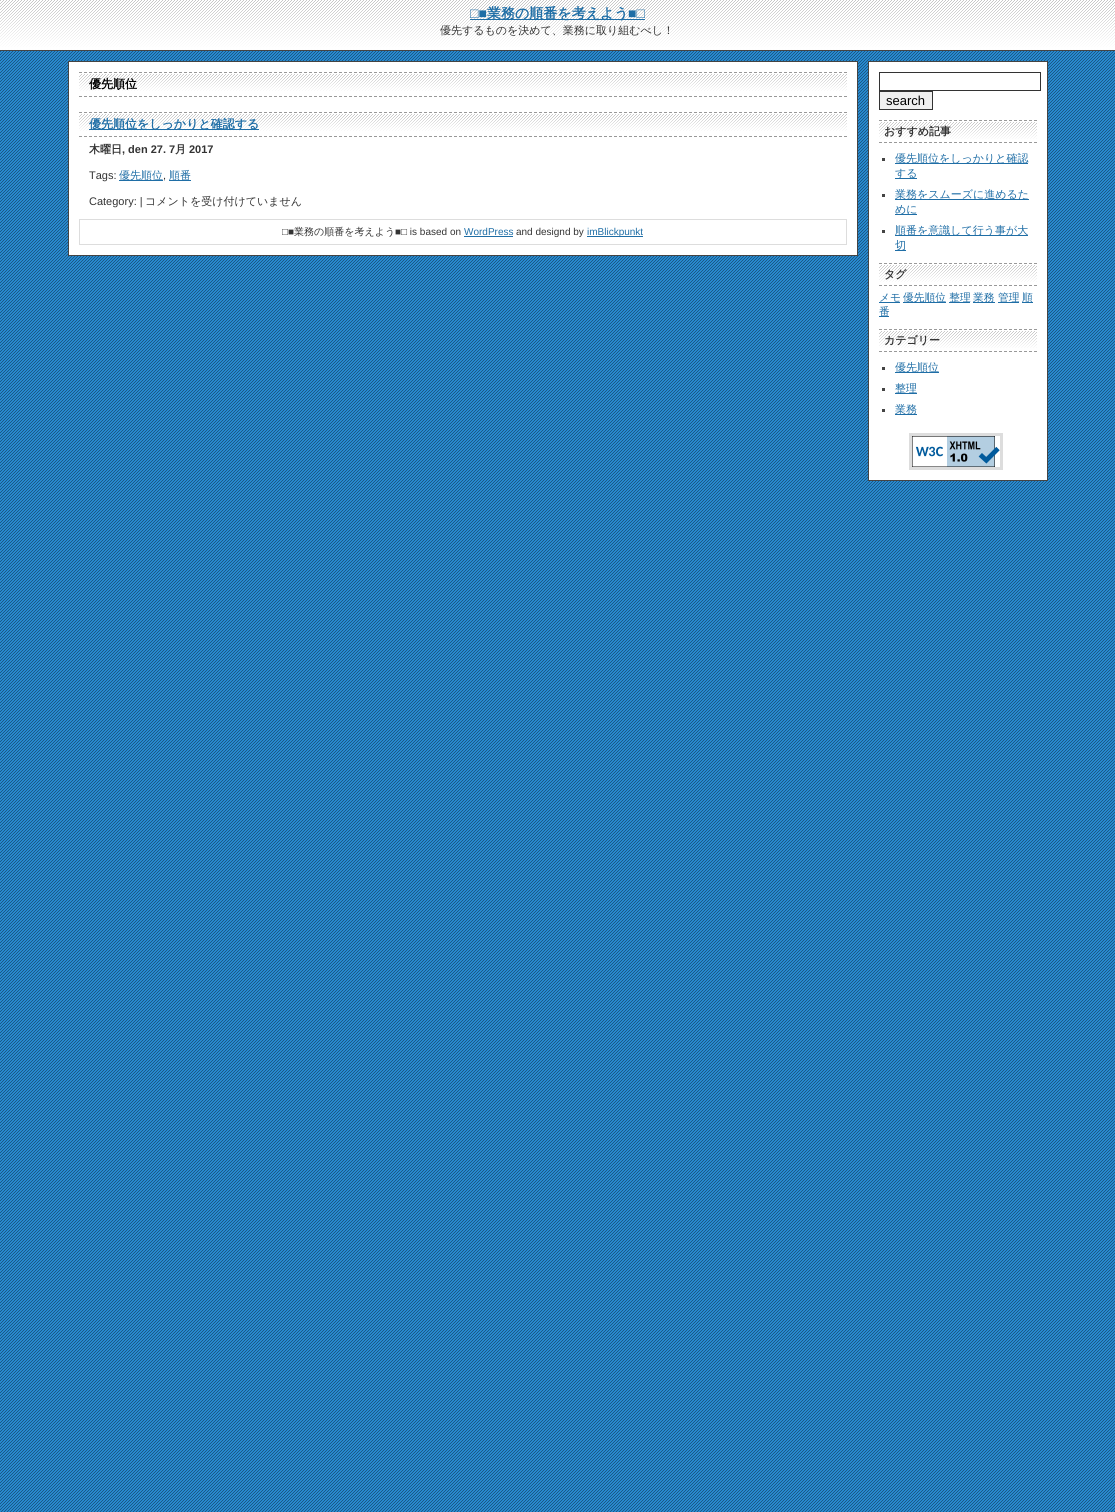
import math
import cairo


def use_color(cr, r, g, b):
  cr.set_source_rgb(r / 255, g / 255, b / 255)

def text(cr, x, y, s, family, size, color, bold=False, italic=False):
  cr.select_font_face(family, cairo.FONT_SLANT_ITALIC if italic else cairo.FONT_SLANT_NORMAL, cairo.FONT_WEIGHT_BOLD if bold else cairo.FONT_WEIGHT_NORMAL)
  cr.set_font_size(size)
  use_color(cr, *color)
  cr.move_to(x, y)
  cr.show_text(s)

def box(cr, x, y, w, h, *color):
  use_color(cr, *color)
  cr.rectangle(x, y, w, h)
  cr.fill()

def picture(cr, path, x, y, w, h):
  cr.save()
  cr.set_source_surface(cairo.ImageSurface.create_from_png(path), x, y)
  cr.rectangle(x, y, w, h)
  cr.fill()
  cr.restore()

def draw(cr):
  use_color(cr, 255, 255, 255)
  cr.paint()
  picture(cr, "img_01.png", 0, 51, 1115, 1461)
  picture(cr, "img_02.png", 0, 0, 1115, 50)
  box(cr, 0, 50, 1115, 1, 68, 68, 68)
  box(cr, 470, 19, 175, 1, 31, 110, 166)
  use_color(cr, 255, 255, 255)
  cr.rectangle(68.5, 61.5, 789, 194)
  cr.fill_preserve()
  use_color(cr, 68, 68, 68)
  cr.set_line_width(1)
  cr.stroke()
  picture(cr, "img_03.png", 79, 74, 768, 17)
  cr.new_path()
  cr.move_to(79, 72.5)
  cr.line_to(847, 72.5)
  use_color(cr, 153, 153, 153)
  cr.set_dash([3, 2])
  cr.stroke()
  cr.new_path()
  cr.move_to(79, 96.5)
  cr.line_to(847, 96.5)
  cr.stroke()
  picture(cr, "img_03.png", 79, 114, 768, 17)
  cr.new_path()
  cr.move_to(79, 112.5)
  cr.line_to(847, 112.5)
  cr.stroke()
  cr.new_path()
  cr.move_to(79, 136.5)
  cr.line_to(847, 136.5)
  cr.stroke()
  box(cr, 89, 129, 170, 1, 31, 110, 166)
  box(cr, 119, 180, 44, 1, 31, 110, 166)
  box(cr, 169, 180, 22, 1, 31, 110, 166)
  cr.rectangle(79.5, 219.5, 767, 25)
  use_color(cr, 221, 221, 221)
  cr.set_dash([])
  cr.stroke()
  box(cr, 464, 236, 49, 1, 31, 110, 166)
  box(cr, 587, 236, 56, 1, 31, 110, 166)
  use_color(cr, 255, 255, 255)
  cr.rectangle(868.5, 61.5, 179, 419)
  cr.fill_preserve()
  use_color(cr, 68, 68, 68)
  cr.stroke()
  cr.rectangle(879.5, 72.5, 161, 18)
  use_color(cr, 51, 51, 51)
  cr.stroke()
  use_color(cr, 239, 239, 239)
  cr.rectangle(879.5, 91.5, 53, 18)
  cr.fill_preserve()
  use_color(cr, 51, 51, 51)
  cr.stroke()
  picture(cr, "img_04.png", 879, 122, 158, 17)
  cr.new_path()
  cr.move_to(879, 120.5)
  cr.line_to(1037, 120.5)
  use_color(cr, 153, 153, 153)
  cr.set_dash([3, 2])
  cr.stroke()
  cr.new_path()
  cr.move_to(879, 142.5)
  cr.line_to(1037, 142.5)
  cr.stroke()
  box(cr, 882, 158, 3, 3, 68, 68, 68)
  box(cr, 895, 163, 133, 1, 31, 110, 166)
  box(cr, 895, 178, 22, 1, 31, 110, 166)
  box(cr, 882, 194, 3, 3, 68, 68, 68)
  box(cr, 895, 199, 134, 1, 31, 110, 166)
  box(cr, 895, 214, 22, 1, 31, 110, 166)
  box(cr, 882, 230, 3, 3, 68, 68, 68)
  box(cr, 895, 235, 133, 1, 31, 110, 166)
  box(cr, 895, 250, 11, 1, 31, 110, 166)
  picture(cr, "img_04.png", 879, 265, 158, 17)
  cr.new_path()
  cr.move_to(879, 263.5)
  cr.line_to(1037, 263.5)
  use_color(cr, 153, 153, 153)
  cr.stroke()
  cr.new_path()
  cr.move_to(879, 285.5)
  cr.line_to(1037, 285.5)
  cr.stroke()
  box(cr, 879, 302, 21, 1, 31, 110, 166)
  box(cr, 903, 302, 43, 1, 31, 110, 166)
  box(cr, 973, 302, 22, 1, 31, 110, 166)
  box(cr, 998, 302, 21, 1, 31, 110, 166)
  box(cr, 1022, 302, 11, 1, 31, 110, 166)
  box(cr, 949, 302, 21, 1, 31, 110, 166)
  box(cr, 879, 316, 10, 1, 31, 110, 166)
  picture(cr, "img_04.png", 879, 331, 158, 17)
  cr.new_path()
  cr.move_to(879, 329.5)
  cr.line_to(1037, 329.5)
  use_color(cr, 153, 153, 153)
  cr.stroke()
  cr.new_path()
  cr.move_to(879, 351.5)
  cr.line_to(1037, 351.5)
  cr.stroke()
  box(cr, 882, 367, 3, 3, 68, 68, 68)
  box(cr, 895, 372, 44, 1, 31, 110, 166)
  box(cr, 882, 388, 3, 3, 68, 68, 68)
  box(cr, 895, 393, 22, 1, 31, 110, 166)
  box(cr, 882, 409, 3, 3, 68, 68, 68)
  box(cr, 895, 414, 22, 1, 31, 110, 166)
  cr.rectangle(910.5, 434.5, 91, 34)
  use_color(cr, 221, 221, 221)
  cr.set_line_width(3)
  cr.set_dash([])
  cr.stroke()
  picture(cr, "img_05.png", 912, 436, 88, 31)
  text(cr, 470, 18, "□■", "Liberation Sans", 14, (31, 110, 166), bold=True)
  text(cr, 487, 18, "業務の順番を考えよう", "WenQuanYi Zen Hei", 14, (31, 110, 166), bold=True)
  text(cr, 628, 18, "■□", "Liberation Sans", 14, (31, 110, 166), bold=True)
  text(cr, 440, 34, "優先するものを決めて、業務に取り組むべし！", "WenQuanYi Zen Hei Medium", 11, (51, 51, 51))
  text(cr, 89, 88, "優先順位", "WenQuanYi Zen Hei", 12, (0, 0, 0), bold=True)
  text(cr, 89, 128, "優先順位をしっかりと確認する", "WenQuanYi Zen Hei", 12, (31, 110, 166), bold=True)
  text(cr, 89, 153, "木曜日", "WenQuanYi Zen Hei", 11, (51, 51, 51), bold=True)
  text(cr, 122, 153, ", den 27. 7", "Liberation Sans", 11, (51, 51, 51), bold=True)
  text(cr, 175, 153, "月", "WenQuanYi Zen Hei", 11, (51, 51, 51), bold=True)
  text(cr, 189, 153, "2017", "Liberation Sans", 11, (51, 51, 51), bold=True)
  text(cr, 89, 179, "Tags:", "Liberation Sans", 11, (51, 51, 51))
  text(cr, 119, 179, "優先順位", "WenQuanYi Zen Hei Medium", 11, (31, 110, 166))
  text(cr, 163, 179, ",", "Liberation Sans", 11, (51, 51, 51))
  text(cr, 169, 179, "順番", "WenQuanYi Zen Hei Medium", 11, (31, 110, 166))
  text(cr, 89, 205, "Category: |", "Liberation Sans", 11, (51, 51, 51))
  text(cr, 145, 205, "コメントを受け付けていません", "WenQuanYi Zen Hei Medium", 11, (51, 51, 51))
  text(cr, 282, 235, "□■", "Liberation Sans", 10, (51, 51, 51))
  text(cr, 294, 235, "業務の順番を考えよう", "WenQuanYi Zen Hei Medium", 10, (51, 51, 51))
  text(cr, 395, 235, "■□ is based on", "Liberation Sans", 10, (51, 51, 51))
  text(cr, 464, 235, "WordPress", "Liberation Sans", 10, (31, 110, 166))
  text(cr, 516, 235, "and designd by", "Liberation Sans", 10, (51, 51, 51))
  text(cr, 587, 235, "imBlickpunkt", "Liberation Sans", 10, (31, 110, 166))
  text(cr, 886, 105, "search", "Liberation Sans", 13, (0, 0, 0))
  text(cr, 884, 135, "おすすめ記事", "WenQuanYi Zen Hei", 11, (51, 51, 51), bold=True)
  text(cr, 895, 162, "優先順位をしっかりと確認", "WenQuanYi Zen Hei Medium", 11, (31, 110, 166))
  text(cr, 895, 177, "する", "WenQuanYi Zen Hei Medium", 11, (31, 110, 166))
  text(cr, 895, 198, "業務をスムーズに進めるた", "WenQuanYi Zen Hei Medium", 11, (31, 110, 166))
  text(cr, 895, 213, "めに", "WenQuanYi Zen Hei Medium", 11, (31, 110, 166))
  text(cr, 895, 234, "順番を意識して行う事が大", "WenQuanYi Zen Hei Medium", 11, (31, 110, 166))
  text(cr, 895, 249, "切", "WenQuanYi Zen Hei Medium", 11, (31, 110, 166))
  text(cr, 884, 278, "タグ", "WenQuanYi Zen Hei", 11, (51, 51, 51), bold=True)
  text(cr, 879, 301, "メモ", "WenQuanYi Zen Hei Medium", 10.75, (31, 110, 166))
  text(cr, 903, 301, "優先順位 整理", "WenQuanYi Zen Hei Medium", 10.75, (31, 110, 166))
  text(cr, 973, 301, "業務", "WenQuanYi Zen Hei Medium", 10.75, (31, 110, 166))
  text(cr, 998, 301, "管理", "WenQuanYi Zen Hei Medium", 10.75, (31, 110, 166))
  text(cr, 1022, 301, "順", "WenQuanYi Zen Hei Medium", 10.75, (31, 110, 166))
  text(cr, 879, 315, "番", "WenQuanYi Zen Hei Medium", 10.75, (31, 110, 166))
  text(cr, 884, 344, "カテゴリー", "WenQuanYi Zen Hei", 11, (51, 51, 51), bold=True)
  text(cr, 895, 371, "優先順位", "WenQuanYi Zen Hei Medium", 11, (31, 110, 166))
  text(cr, 895, 392, "整理", "WenQuanYi Zen Hei Medium", 11, (31, 110, 166))
  text(cr, 895, 413, "業務", "WenQuanYi Zen Hei Medium", 11, (31, 110, 166))


surface = cairo.ImageSurface(cairo.FORMAT_RGB24, 1115, 1512)
cr = cairo.Context(surface)
options = cairo.FontOptions()
options.set_hint_metrics(cairo.HINT_METRICS_OFF)
options.set_hint_style(cairo.HINT_STYLE_NONE)
cr.set_font_options(options)
cr.set_miter_limit(4)
draw(cr)
surface.write_to_png("out.png")
